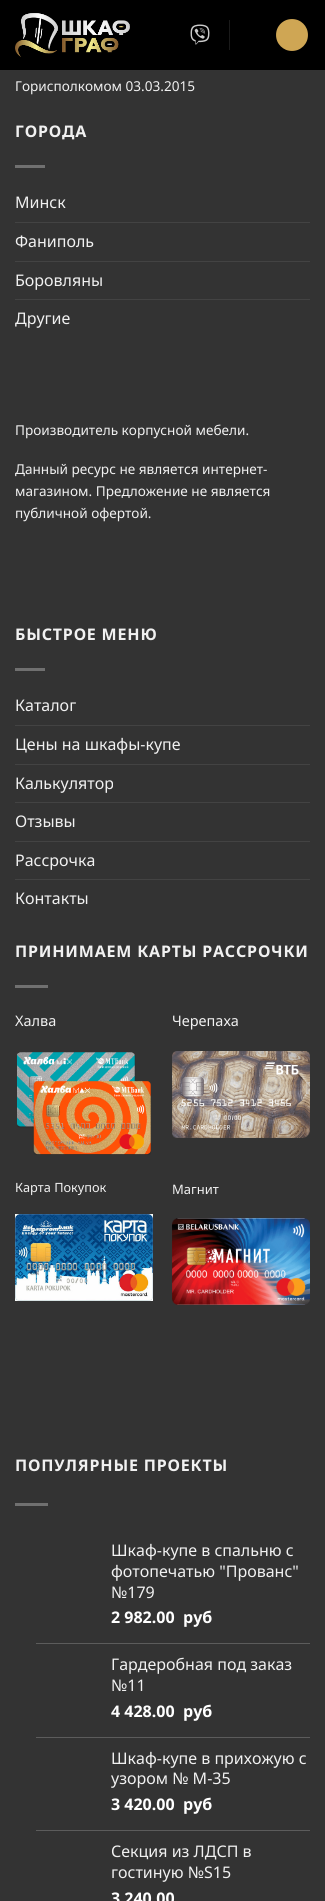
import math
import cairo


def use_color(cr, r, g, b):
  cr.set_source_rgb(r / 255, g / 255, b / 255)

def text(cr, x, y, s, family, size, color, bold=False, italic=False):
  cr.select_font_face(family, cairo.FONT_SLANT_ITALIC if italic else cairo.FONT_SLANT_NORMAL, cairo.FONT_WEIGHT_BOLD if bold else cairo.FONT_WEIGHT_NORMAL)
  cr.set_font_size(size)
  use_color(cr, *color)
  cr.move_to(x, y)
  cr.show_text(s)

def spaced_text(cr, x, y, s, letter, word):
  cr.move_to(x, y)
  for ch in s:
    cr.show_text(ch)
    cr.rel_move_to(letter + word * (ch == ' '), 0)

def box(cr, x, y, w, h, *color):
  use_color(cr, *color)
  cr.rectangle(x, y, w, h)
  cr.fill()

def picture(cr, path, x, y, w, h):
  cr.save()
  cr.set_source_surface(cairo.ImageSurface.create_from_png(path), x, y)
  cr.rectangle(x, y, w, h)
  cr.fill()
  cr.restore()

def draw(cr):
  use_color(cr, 51, 51, 51)
  cr.paint()
  box(cr, 0, 0, 325, 70, 0, 0, 0)
  picture(cr, "img_01.png", 15, 13, 115, 44)
  picture(cr, "img_02.png", 190, 24, 20, 21)
  box(cr, 229, 20, 1, 30, 26, 26, 26)
  use_color(cr, 207, 166, 84)
  cr.arc(292, 35, 16, 0, 2 * math.pi)
  cr.fill()
  cr.rectangle(276.5, 19.5, 31, 31)
  cr.set_source_rgba(0, 0, 0, 0.05)
  cr.set_line_width(1)
  cr.stroke()
  box(cr, 15, 165, 30, 3, 112, 112, 112)
  box(cr, 15, 222, 295, 1, 67, 67, 67)
  box(cr, 15, 261, 295, 1, 67, 67, 67)
  box(cr, 15, 299, 295, 1, 67, 67, 67)
  box(cr, 15, 668, 30, 3, 112, 112, 112)
  box(cr, 15, 725, 295, 1, 67, 67, 67)
  box(cr, 15, 764, 295, 1, 67, 67, 67)
  box(cr, 15, 802, 295, 1, 67, 67, 67)
  box(cr, 15, 841, 295, 1, 67, 67, 67)
  box(cr, 15, 879, 295, 1, 67, 67, 67)
  box(cr, 15, 985, 33, 3, 112, 112, 112)
  picture(cr, "img_03.png", 17, 1052, 134, 103)
  picture(cr, "img_04.png", 172, 1051, 138, 87)
  picture(cr, "img_05.png", 15, 1214, 138, 87)
  picture(cr, "img_06.png", 172, 1218, 138, 87)
  box(cr, 15, 1503, 33, 3, 112, 112, 112)
  box(cr, 36, 1643, 274, 1, 92, 92, 92)
  box(cr, 36, 1737, 274, 1, 92, 92, 92)
  box(cr, 36, 1830, 274, 1, 92, 92, 92)
  text(cr, 15, 91, "Горисполкомом 03.03.2015", "Noto Sans", 13.6, (241, 241, 241))
  cr.select_font_face("Noto Sans", cairo.FONT_SLANT_NORMAL, cairo.FONT_WEIGHT_BOLD)
  cr.set_font_size(16)
  spaced_text(cr, 15, 137, "ГОРОДА", 0.8, 0)
  text(cr, 15, 208, "Минск", "Noto Sans", 16, (241, 241, 241))
  text(cr, 15, 247, "Фаниполь", "Noto Sans", 16, (241, 241, 241))
  text(cr, 15, 286, "Боровляны", "Noto Sans", 16, (241, 241, 241))
  text(cr, 15, 324, "Другие", "Noto Sans", 16, (241, 241, 241))
  text(cr, 15, 435, "Производитель корпусной мебели.", "Noto Sans", 13.6, (241, 241, 241))
  text(cr, 15, 474, "Данный ресурс не является интернет-", "Noto Sans", 13.6, (241, 241, 241))
  text(cr, 15, 496, "магазином. Предложение не является", "Noto Sans", 13.6, (241, 241, 241))
  text(cr, 15, 518, "публичной офертой.", "Noto Sans", 13.6, (241, 241, 241))
  cr.select_font_face("Noto Sans", cairo.FONT_SLANT_NORMAL, cairo.FONT_WEIGHT_BOLD)
  cr.set_font_size(16)
  spaced_text(cr, 15, 640, "БЫСТРОЕ МЕНЮ", 0.8, 0)
  text(cr, 15, 711, "Каталог", "Noto Sans", 16, (241, 241, 241))
  text(cr, 15, 750, "Цены на шкафы-купе", "Noto Sans", 16, (241, 241, 241))
  text(cr, 15, 789, "Калькулятор", "Noto Sans", 16, (241, 241, 241))
  text(cr, 15, 827, "Отзывы", "Noto Sans", 16, (241, 241, 241))
  text(cr, 15, 866, "Рассрочка", "Noto Sans", 16, (241, 241, 241))
  text(cr, 15, 904, "Контакты", "Noto Sans", 16, (241, 241, 241))
  cr.select_font_face("Noto Sans", cairo.FONT_SLANT_NORMAL, cairo.FONT_WEIGHT_BOLD)
  spaced_text(cr, 15, 957, "ПРИНИМАЕМ КАРТЫ РАССРОЧКИ", 0.8, 0)
  text(cr, 15, 1026, "Халва", "Noto Sans", 14.5, (241, 241, 241))
  text(cr, 172, 1026, "Черепаха", "Noto Sans", 14.5, (241, 241, 241))
  text(cr, 15, 1192, "Карта Покупок", "Noto Sans", 12.75, (241, 241, 241))
  text(cr, 172, 1194, "Магнит", "Noto Sans", 13, (241, 241, 241))
  cr.select_font_face("Noto Sans", cairo.FONT_SLANT_NORMAL, cairo.FONT_WEIGHT_BOLD)
  cr.set_font_size(16)
  spaced_text(cr, 15, 1471, "ПОПУЛЯРНЫЕ ПРОЕКТЫ", 0.8, 0)
  text(cr, 111, 1556, "Шкаф-купе в спальню с", "Noto Sans", 16, (241, 241, 241))
  text(cr, 111, 1577, "фотопечатью \"Прованс\"", "Noto Sans", 16, (241, 241, 241))
  text(cr, 111, 1598, "№179", "Noto Sans", 16, (241, 241, 241))
  text(cr, 111, 1623, "2 982.00", "Noto Sans", 16, (255, 255, 255), bold=True)
  text(cr, 183, 1623, "руб", "Noto Sans", 16, (255, 255, 255), bold=True)
  text(cr, 111, 1670, "Гардеробная под заказ", "Noto Sans", 16, (241, 241, 241))
  text(cr, 111, 1691, "№11", "Noto Sans", 16, (241, 241, 241))
  text(cr, 111, 1717, "4 428.00", "Noto Sans", 16, (255, 255, 255), bold=True)
  text(cr, 183, 1717, "руб", "Noto Sans", 16, (255, 255, 255), bold=True)
  text(cr, 111, 1764, "Шкаф-купе в прихожую с", "Noto Sans", 16, (241, 241, 241))
  text(cr, 111, 1784, "узором № M-35", "Noto Sans", 16, (241, 241, 241))
  text(cr, 111, 1810, "3 420.00", "Noto Sans", 16, (255, 255, 255), bold=True)
  text(cr, 183, 1810, "руб", "Noto Sans", 16, (255, 255, 255), bold=True)
  text(cr, 111, 1857, "Секция из ЛДСП в", "Noto Sans", 16, (241, 241, 241))
  text(cr, 111, 1878, "гостиную №S15", "Noto Sans", 16, (241, 241, 241))
  text(cr, 111, 1904, "3 240.00", "Noto Sans", 16, (255, 255, 255), bold=True)


surface = cairo.ImageSurface(cairo.FORMAT_RGB24, 325, 1901)
cr = cairo.Context(surface)
options = cairo.FontOptions()
options.set_hint_metrics(cairo.HINT_METRICS_OFF)
options.set_hint_style(cairo.HINT_STYLE_NONE)
cr.set_font_options(options)
cr.set_miter_limit(4)
draw(cr)
surface.write_to_png("out.png")
